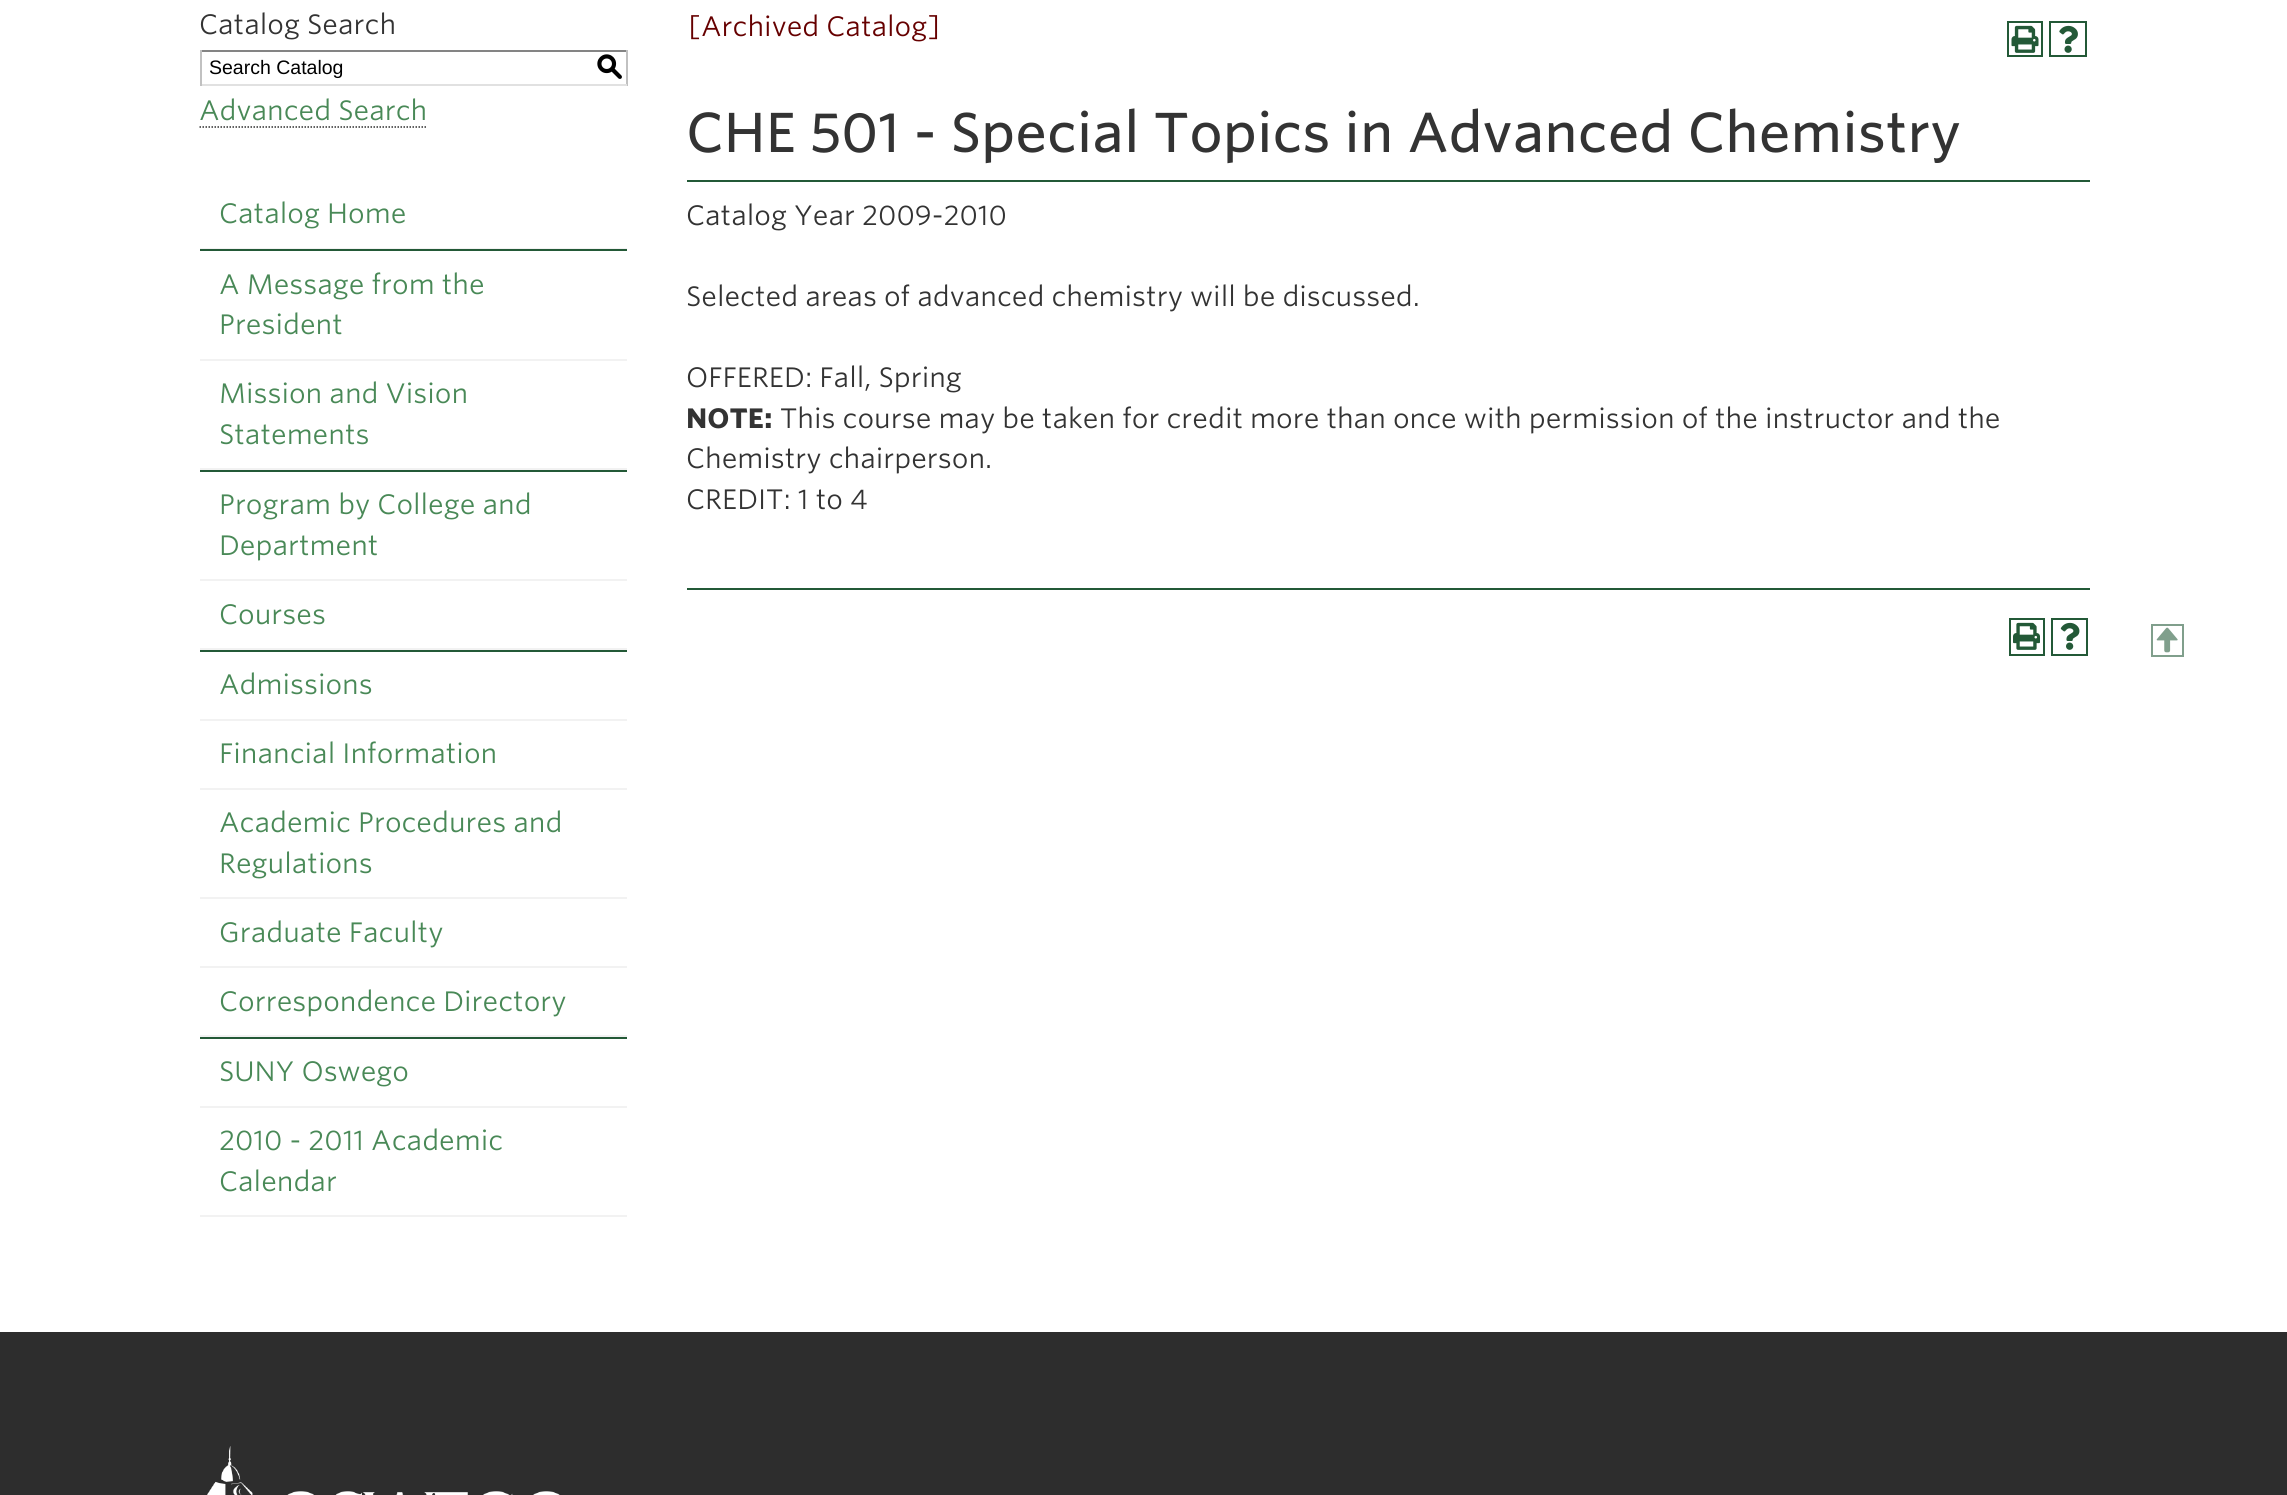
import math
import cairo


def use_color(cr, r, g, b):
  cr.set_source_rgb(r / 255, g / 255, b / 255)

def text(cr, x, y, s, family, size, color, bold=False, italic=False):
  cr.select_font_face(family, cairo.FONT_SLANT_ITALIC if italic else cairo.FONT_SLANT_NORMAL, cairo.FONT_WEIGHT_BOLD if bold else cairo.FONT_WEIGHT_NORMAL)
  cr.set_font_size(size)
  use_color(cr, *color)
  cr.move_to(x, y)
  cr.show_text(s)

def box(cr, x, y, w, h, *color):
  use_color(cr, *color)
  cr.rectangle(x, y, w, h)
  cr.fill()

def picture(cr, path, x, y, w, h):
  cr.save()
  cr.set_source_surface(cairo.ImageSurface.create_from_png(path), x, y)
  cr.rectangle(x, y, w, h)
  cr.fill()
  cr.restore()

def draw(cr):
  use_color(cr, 255, 255, 255)
  cr.paint()
  box(cr, 200, 50, 427, 2, 132, 132, 132)
  box(cr, 626, 50, 2, 36, 193, 193, 193)
  box(cr, 200, 84, 427, 2, 225, 225, 225)
  box(cr, 200, 50, 2, 36, 193, 193, 193)
  cr.new_path()
  cr.move_to(199.5, 127)
  cr.line_to(427.5, 127)
  use_color(cr, 45, 45, 45)
  cr.set_line_width(1.5)
  cr.set_dash([1.5, 1.5])
  cr.stroke()
  box(cr, 200, 248, 427, 1, 242, 242, 242)
  box(cr, 200, 249, 427, 2, 35, 89, 55)
  box(cr, 200, 359, 427, 2, 242, 242, 242)
  box(cr, 200, 468, 427, 2, 242, 242, 242)
  box(cr, 200, 470, 427, 2, 35, 89, 55)
  box(cr, 200, 579, 427, 2, 242, 242, 242)
  box(cr, 200, 648, 427, 2, 242, 242, 242)
  box(cr, 200, 650, 427, 2, 35, 89, 55)
  box(cr, 200, 719, 427, 2, 242, 242, 242)
  box(cr, 200, 788, 427, 2, 242, 242, 242)
  box(cr, 200, 897, 427, 2, 242, 242, 242)
  box(cr, 200, 966, 427, 2, 242, 242, 242)
  box(cr, 200, 1035, 427, 2, 242, 242, 242)
  box(cr, 200, 1037, 427, 2, 35, 89, 55)
  box(cr, 200, 1106, 427, 2, 242, 242, 242)
  box(cr, 200, 1215, 427, 2, 242, 242, 242)
  cr.rectangle(2008, 22, 34, 34)
  use_color(cr, 35, 89, 55)
  cr.set_line_width(2)
  cr.set_dash([])
  cr.stroke()
  picture(cr, "img_01.png", 2011, 25, 28, 28)
  cr.rectangle(2050, 22, 36, 34)
  cr.stroke()
  picture(cr, "img_02.png", 2059, 25, 19, 28)
  box(cr, 687, 180, 1403, 2, 35, 89, 55)
  box(cr, 687, 588, 1403, 2, 35, 89, 55)
  cr.rectangle(2010, 619, 34, 36)
  cr.stroke()
  picture(cr, "img_03.png", 2013, 622, 27, 28)
  cr.rectangle(2052, 619, 35, 36)
  cr.stroke()
  picture(cr, "img_04.png", 2060, 622, 20, 28)
  cr.rectangle(2152, 625, 31, 31)
  use_color(cr, 128, 159, 140)
  cr.stroke()
  box(cr, 0, 1332, 2287, 163, 45, 45, 45)
  picture(cr, "img_05.png", 207, 1446, 353, 49)
  text(cr, 199, 34, "Catalog Search", "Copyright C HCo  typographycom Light", 27, (51, 51, 51))
  text(cr, 209, 74, "Search Catalog", "Liberation Sans", 19.5, (0, 0, 0))
  text(cr, 596, 75, "S", "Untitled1 Medium", 27, (0, 0, 0))
  text(cr, 199, 120, "Advanced Search", "Copyright C HCo  typographycom Light", 27, (73, 137, 87))
  text(cr, 219, 223, "Catalog Home", "Copyright C HCo  typographycom Light", 27, (73, 137, 87))
  text(cr, 219, 294, "A Message from the", "Copyright C HCo  typographycom Light", 27, (73, 137, 87))
  text(cr, 219, 334, "President", "Copyright C HCo  typographycom Light", 27, (73, 137, 87))
  text(cr, 219, 403, "Mission and Vision", "Copyright C HCo  typographycom Light", 27, (73, 137, 87))
  text(cr, 219, 444, "Statements", "Copyright C HCo  typographycom Light", 27, (73, 137, 87))
  text(cr, 219, 514, "Program by College and", "Copyright C HCo  typographycom Light", 27, (73, 137, 87))
  text(cr, 219, 555, "Department", "Copyright C HCo  typographycom Light", 27, (73, 137, 87))
  text(cr, 219, 624, "Courses", "Copyright C HCo  typographycom Light", 27, (73, 137, 87))
  text(cr, 219, 694, "Admissions", "Copyright C HCo  typographycom Light", 27, (73, 137, 87))
  text(cr, 219, 763, "Financial Information", "Copyright C HCo  typographycom Light", 27, (73, 137, 87))
  text(cr, 219, 832, "Academic Procedures and", "Copyright C HCo  typographycom Light", 27, (73, 137, 87))
  text(cr, 219, 873, "Regulations", "Copyright C HCo  typographycom Light", 27, (73, 137, 87))
  text(cr, 219, 942, "Graduate Faculty", "Copyright C HCo  typographycom Light", 27, (73, 137, 87))
  text(cr, 219, 1011, "Correspondence Directory", "Copyright C HCo  typographycom Light", 27, (73, 137, 87))
  text(cr, 219, 1081, "SUNY Oswego", "Copyright C HCo  typographycom Light", 27, (73, 137, 87))
  text(cr, 219, 1150, "2010 - 2011 Academic", "Copyright C HCo  typographycom Light", 27, (73, 137, 87))
  text(cr, 219, 1191, "Calendar", "Copyright C HCo  typographycom Light", 27, (73, 137, 87))
  text(cr, 688, 36, "[Archived Catalog]", "Copyright C HCo  typographycom Light", 27, (102, 0, 0))
  text(cr, 686, 152, "CHE 501 - Special Topics in Advanced Chemistry", "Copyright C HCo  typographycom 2 Light", 54, (51, 51, 51))
  text(cr, 686, 225, "Catalog Year 2009-2010", "Copyright C HCo  typographycom Light", 27, (51, 51, 51))
  text(cr, 686, 306, "Selected areas of advanced chemistry will be discussed.", "Copyright C HCo  typographycom Light", 27, (51, 51, 51))
  text(cr, 686, 387, "OFFERED: Fall, Spring", "Copyright C HCo  typographycom Light", 27, (51, 51, 51))
  text(cr, 686, 428, "NOTE:", "Copyright C HCo  typographycom", 27, (51, 51, 51))
  text(cr, 780, 428, "This course may be taken for credit more than once with permission of the instructor and the", "Copyright C HCo  typographycom Light", 27, (51, 51, 51))
  text(cr, 686, 468, "Chemistry chairperson.", "Copyright C HCo  typographycom Light", 27, (51, 51, 51))
  text(cr, 686, 509, "CREDIT: 1 to 4", "Copyright C HCo  typographycom Light", 27, (51, 51, 51))
  text(cr, 2153, 648, "T", "Untitled1 Medium", 27, (128, 159, 140))


surface = cairo.ImageSurface(cairo.FORMAT_RGB24, 2287, 1495)
cr = cairo.Context(surface)
options = cairo.FontOptions()
options.set_hint_metrics(cairo.HINT_METRICS_OFF)
options.set_hint_style(cairo.HINT_STYLE_NONE)
cr.set_font_options(options)
cr.set_miter_limit(4)
draw(cr)
surface.write_to_png("out.png")
